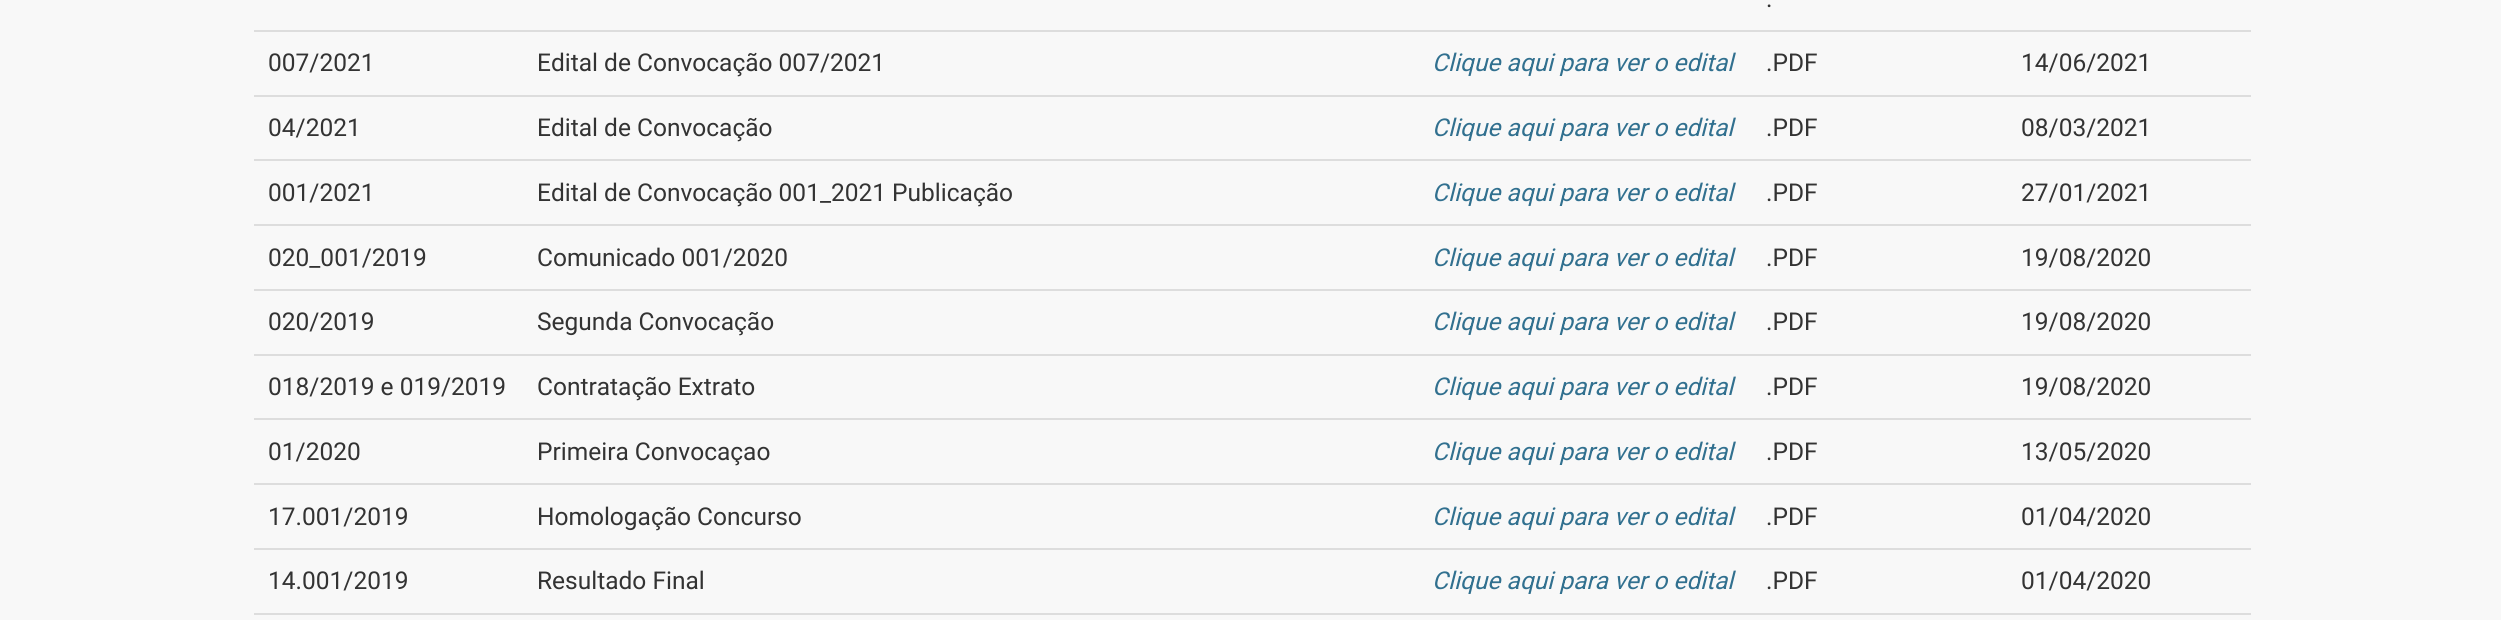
import math
import cairo


def use_color(cr, r, g, b):
  cr.set_source_rgb(r / 255, g / 255, b / 255)

def text(cr, x, y, s, family, size, color, bold=False, italic=False):
  cr.select_font_face(family, cairo.FONT_SLANT_ITALIC if italic else cairo.FONT_SLANT_NORMAL, cairo.FONT_WEIGHT_BOLD if bold else cairo.FONT_WEIGHT_NORMAL)
  cr.set_font_size(size)
  use_color(cr, *color)
  cr.move_to(x, y)
  cr.show_text(s)

def box(cr, x, y, w, h, *color):
  use_color(cr, *color)
  cr.rectangle(x, y, w, h)
  cr.fill()

def draw(cr):
  use_color(cr, 248, 248, 248)
  cr.paint()
  box(cr, 254, 30, 1997, 2, 221, 221, 221)
  box(cr, 254, 95, 1997, 2, 221, 221, 221)
  box(cr, 254, 159, 1997, 2, 221, 221, 221)
  box(cr, 254, 224, 1997, 2, 221, 221, 221)
  box(cr, 254, 289, 1997, 2, 221, 221, 221)
  box(cr, 254, 354, 1997, 2, 221, 221, 221)
  box(cr, 254, 418, 1997, 2, 221, 221, 221)
  box(cr, 254, 483, 1997, 2, 221, 221, 221)
  box(cr, 254, 548, 1997, 2, 221, 221, 221)
  box(cr, 254, 613, 1997, 2, 221, 221, 221)
  text(cr, 1766, 7, ".", "Roboto", 24.5, (51, 51, 51))
  text(cr, 268, 71, "007/2021", "Roboto", 24.5, (51, 51, 51))
  text(cr, 537, 71, "Edital de Convocação 007/2021", "Roboto", 24.5, (51, 51, 51))
  text(cr, 1432, 71, "Clique aqui para ver o edital", "Roboto", 24.5, (49, 112, 143), italic=True)
  text(cr, 1766, 71, ".PDF", "Roboto", 24.5, (51, 51, 51))
  text(cr, 2021, 71, "14/06/2021", "Roboto", 24.5, (51, 51, 51))
  text(cr, 268, 136, "04/2021", "Roboto", 24.5, (51, 51, 51))
  text(cr, 537, 136, "Edital de Convocação", "Roboto", 24.5, (51, 51, 51))
  text(cr, 1432, 136, "Clique aqui para ver o edital", "Roboto", 24.5, (49, 112, 143), italic=True)
  text(cr, 1766, 136, ".PDF", "Roboto", 24.5, (51, 51, 51))
  text(cr, 2021, 136, "08/03/2021", "Roboto", 24.5, (51, 51, 51))
  text(cr, 268, 201, "001/2021", "Roboto", 24.5, (51, 51, 51))
  text(cr, 537, 201, "Edital de Convocação 001_2021 Publicação", "Roboto", 24.5, (51, 51, 51))
  text(cr, 1432, 201, "Clique aqui para ver o edital", "Roboto", 24.5, (49, 112, 143), italic=True)
  text(cr, 1766, 201, ".PDF", "Roboto", 24.5, (51, 51, 51))
  text(cr, 2021, 201, "27/01/2021", "Roboto", 24.5, (51, 51, 51))
  text(cr, 268, 266, "020_001/2019", "Roboto", 24.5, (51, 51, 51))
  text(cr, 537, 266, "Comunicado 001/2020", "Roboto", 24.5, (51, 51, 51))
  text(cr, 1432, 266, "Clique aqui para ver o edital", "Roboto", 24.5, (49, 112, 143), italic=True)
  text(cr, 1766, 266, ".PDF", "Roboto", 24.5, (51, 51, 51))
  text(cr, 2021, 266, "19/08/2020", "Roboto", 24.5, (51, 51, 51))
  text(cr, 268, 330, "020/2019", "Roboto", 24.5, (51, 51, 51))
  text(cr, 537, 330, "Segunda Convocação", "Roboto", 24.5, (51, 51, 51))
  text(cr, 1432, 330, "Clique aqui para ver o edital", "Roboto", 24.5, (49, 112, 143), italic=True)
  text(cr, 1766, 330, ".PDF", "Roboto", 24.5, (51, 51, 51))
  text(cr, 2021, 330, "19/08/2020", "Roboto", 24.5, (51, 51, 51))
  text(cr, 268, 395, "018/2019 e 019/2019", "Roboto", 24.5, (51, 51, 51))
  text(cr, 537, 395, "Contratação Extrato", "Roboto", 24.5, (51, 51, 51))
  text(cr, 1432, 395, "Clique aqui para ver o edital", "Roboto", 24.5, (49, 112, 143), italic=True)
  text(cr, 1766, 395, ".PDF", "Roboto", 24.5, (51, 51, 51))
  text(cr, 2021, 395, "19/08/2020", "Roboto", 24.5, (51, 51, 51))
  text(cr, 268, 460, "01/2020", "Roboto", 24.5, (51, 51, 51))
  text(cr, 537, 460, "Primeira Convocaçao", "Roboto", 24.5, (51, 51, 51))
  text(cr, 1432, 460, "Clique aqui para ver o edital", "Roboto", 24.5, (49, 112, 143), italic=True)
  text(cr, 1766, 460, ".PDF", "Roboto", 24.5, (51, 51, 51))
  text(cr, 2021, 460, "13/05/2020", "Roboto", 24.5, (51, 51, 51))
  text(cr, 268, 525, "17.001/2019", "Roboto", 24.5, (51, 51, 51))
  text(cr, 537, 525, "Homologação Concurso", "Roboto", 24.5, (51, 51, 51))
  text(cr, 1432, 525, "Clique aqui para ver o edital", "Roboto", 24.5, (49, 112, 143), italic=True)
  text(cr, 1766, 525, ".PDF", "Roboto", 24.5, (51, 51, 51))
  text(cr, 2021, 525, "01/04/2020", "Roboto", 24.5, (51, 51, 51))
  text(cr, 268, 589, "14.001/2019", "Roboto", 24.5, (51, 51, 51))
  text(cr, 537, 589, "Resultado Final", "Roboto", 24.5, (51, 51, 51))
  text(cr, 1432, 589, "Clique aqui para ver o edital", "Roboto", 24.5, (49, 112, 143), italic=True)
  text(cr, 1766, 589, ".PDF", "Roboto", 24.5, (51, 51, 51))
  text(cr, 2021, 589, "01/04/2020", "Roboto", 24.5, (51, 51, 51))


surface = cairo.ImageSurface(cairo.FORMAT_RGB24, 2501, 620)
cr = cairo.Context(surface)
options = cairo.FontOptions()
options.set_hint_metrics(cairo.HINT_METRICS_OFF)
options.set_hint_style(cairo.HINT_STYLE_NONE)
cr.set_font_options(options)
cr.set_miter_limit(4)
draw(cr)
surface.write_to_png("out.png")
